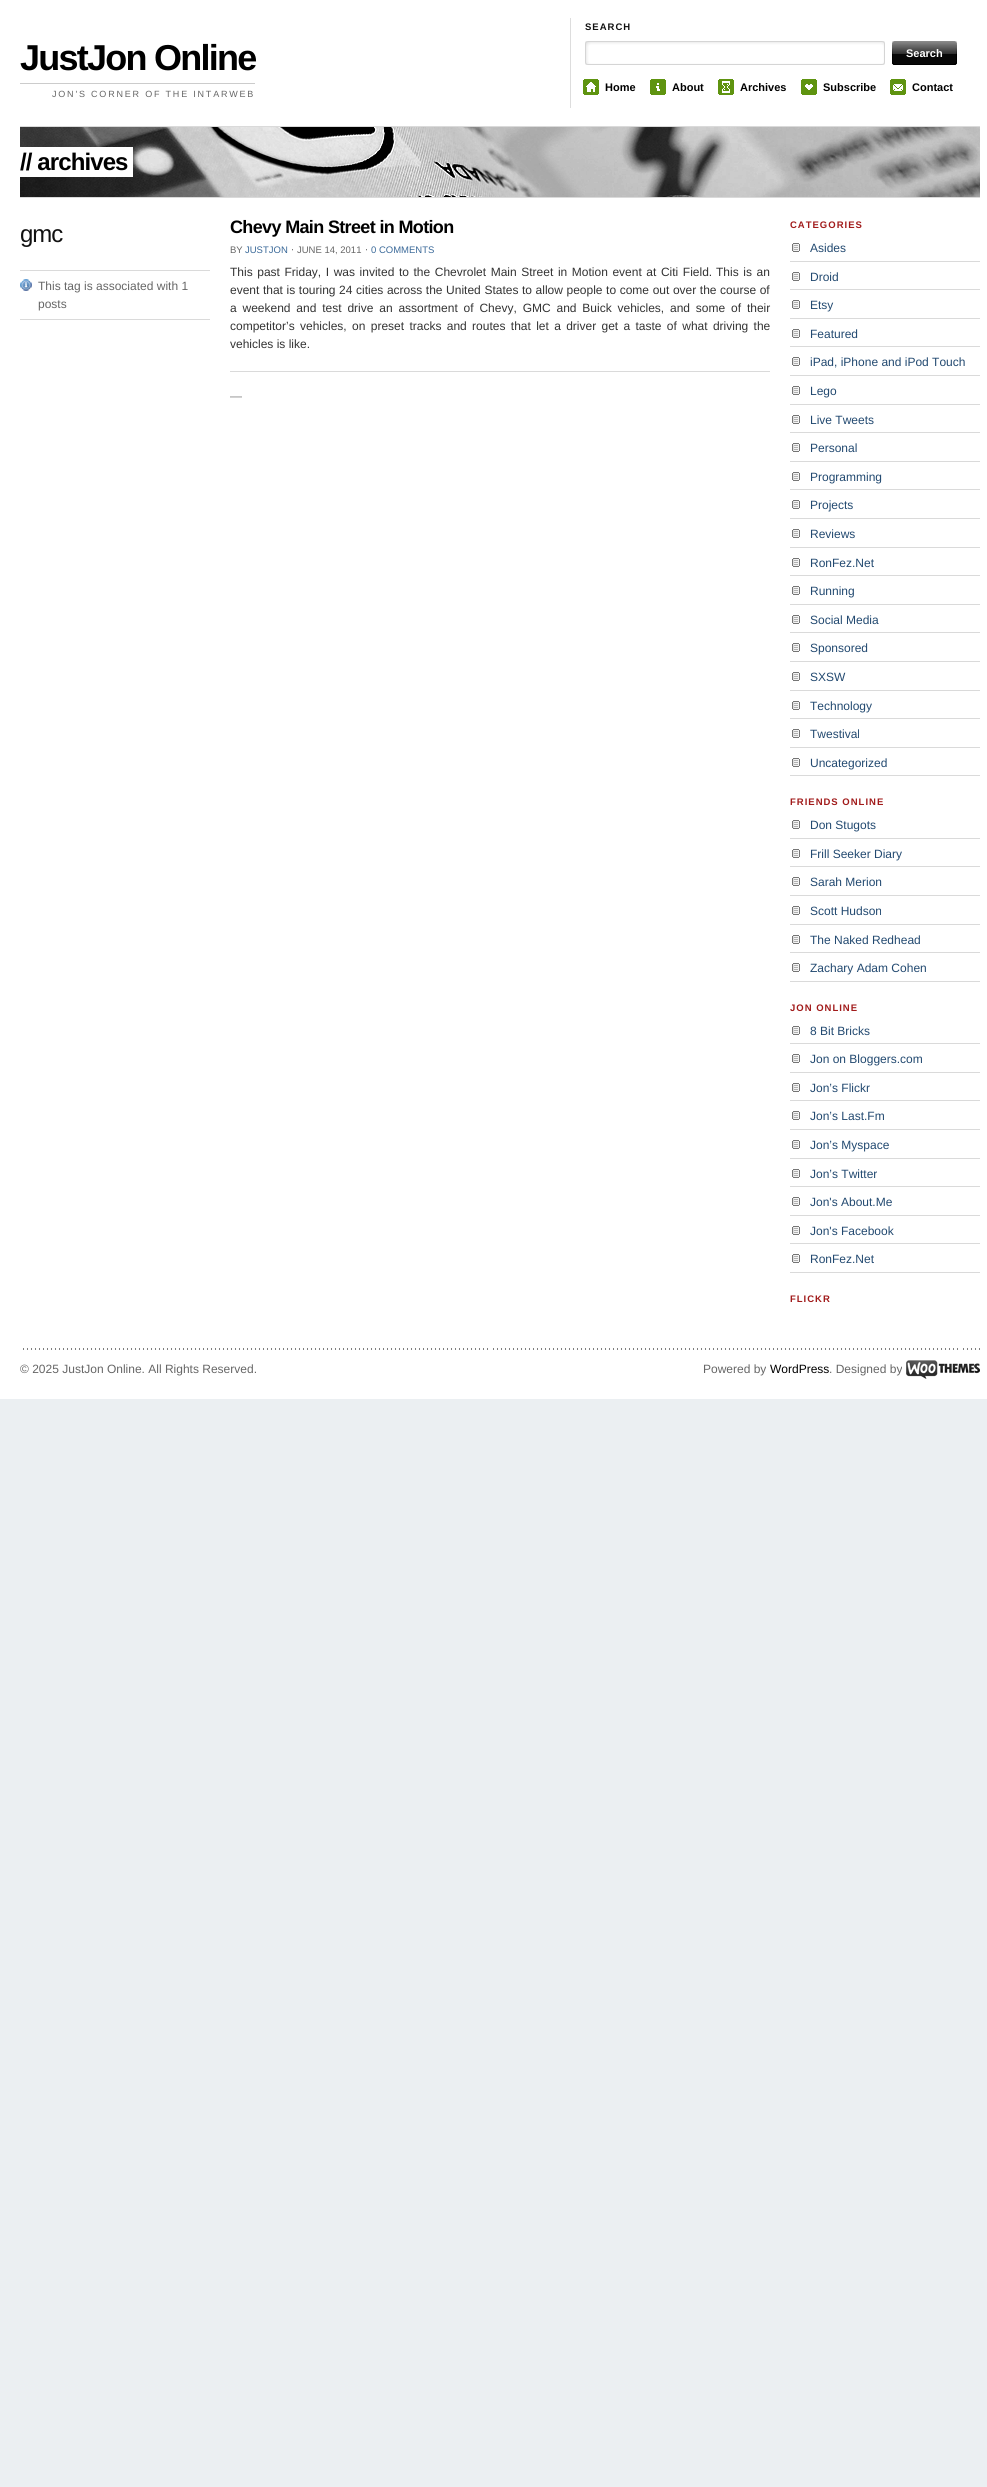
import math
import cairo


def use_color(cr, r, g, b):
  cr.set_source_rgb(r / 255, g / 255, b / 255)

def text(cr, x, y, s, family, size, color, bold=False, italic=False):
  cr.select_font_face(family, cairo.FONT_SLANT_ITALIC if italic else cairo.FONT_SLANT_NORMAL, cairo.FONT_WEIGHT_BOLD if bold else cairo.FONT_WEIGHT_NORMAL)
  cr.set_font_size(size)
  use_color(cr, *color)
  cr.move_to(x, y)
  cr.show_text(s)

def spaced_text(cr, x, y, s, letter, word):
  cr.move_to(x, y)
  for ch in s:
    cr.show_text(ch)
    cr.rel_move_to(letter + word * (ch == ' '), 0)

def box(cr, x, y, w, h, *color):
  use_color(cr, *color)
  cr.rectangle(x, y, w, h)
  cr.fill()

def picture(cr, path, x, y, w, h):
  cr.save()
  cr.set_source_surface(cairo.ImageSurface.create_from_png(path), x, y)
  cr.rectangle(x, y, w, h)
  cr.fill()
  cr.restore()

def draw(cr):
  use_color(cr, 235, 239, 242)
  cr.paint()
  box(cr, 0, 0, 987, 1399, 255, 255, 255)
  box(cr, 20, 83, 235, 1, 204, 204, 204)
  box(cr, 570, 18, 1, 90, 221, 221, 221)
  picture(cr, "img_01.png", 585, 41, 300, 24)
  picture(cr, "img_02.png", 892, 41, 65, 24)
  picture(cr, "img_03.png", 583, 79, 16, 16)
  picture(cr, "img_04.png", 650, 79, 16, 16)
  picture(cr, "img_05.png", 718, 79, 16, 16)
  picture(cr, "img_06.png", 801, 79, 16, 16)
  picture(cr, "img_07.png", 890, 79, 16, 16)
  picture(cr, "img_08.png", 20, 127, 960, 70)
  box(cr, 20, 126, 960, 1, 218, 218, 218)
  box(cr, 20, 197, 960, 1, 218, 218, 218)
  box(cr, 20, 147, 113, 30, 255, 255, 255)
  box(cr, 20, 270, 190, 1, 218, 218, 218)
  picture(cr, "img_09.png", 20, 279, 12, 12)
  box(cr, 20, 319, 190, 1, 218, 218, 218)
  box(cr, 230, 371, 540, 1, 218, 218, 218)
  picture(cr, "img_10.png", 792, 243, 8, 9)
  box(cr, 790, 261, 190, 1, 218, 218, 218)
  picture(cr, "img_10.png", 792, 272, 8, 9)
  box(cr, 790, 289, 190, 1, 218, 218, 218)
  picture(cr, "img_10.png", 792, 300, 8, 9)
  box(cr, 790, 318, 190, 1, 218, 218, 218)
  picture(cr, "img_10.png", 792, 329, 8, 9)
  box(cr, 790, 346, 190, 1, 218, 218, 218)
  picture(cr, "img_10.png", 792, 357, 8, 9)
  box(cr, 790, 375, 190, 1, 218, 218, 218)
  picture(cr, "img_10.png", 792, 386, 8, 9)
  box(cr, 790, 404, 190, 1, 218, 218, 218)
  picture(cr, "img_10.png", 792, 415, 8, 9)
  box(cr, 790, 432, 190, 1, 218, 218, 218)
  picture(cr, "img_10.png", 792, 443, 8, 9)
  box(cr, 790, 461, 190, 1, 218, 218, 218)
  picture(cr, "img_10.png", 792, 472, 8, 9)
  box(cr, 790, 489, 190, 1, 218, 218, 218)
  picture(cr, "img_10.png", 792, 500, 8, 9)
  box(cr, 790, 518, 190, 1, 218, 218, 218)
  picture(cr, "img_10.png", 792, 529, 8, 9)
  box(cr, 790, 547, 190, 1, 218, 218, 218)
  picture(cr, "img_10.png", 792, 558, 8, 9)
  box(cr, 790, 575, 190, 1, 218, 218, 218)
  picture(cr, "img_10.png", 792, 586, 8, 9)
  box(cr, 790, 604, 190, 1, 218, 218, 218)
  picture(cr, "img_10.png", 792, 615, 8, 9)
  box(cr, 790, 632, 190, 1, 218, 218, 218)
  picture(cr, "img_10.png", 792, 643, 8, 9)
  box(cr, 790, 661, 190, 1, 218, 218, 218)
  picture(cr, "img_10.png", 792, 672, 8, 9)
  box(cr, 790, 690, 190, 1, 218, 218, 218)
  picture(cr, "img_10.png", 792, 701, 8, 9)
  box(cr, 790, 718, 190, 1, 218, 218, 218)
  picture(cr, "img_10.png", 792, 729, 8, 9)
  box(cr, 790, 747, 190, 1, 218, 218, 218)
  picture(cr, "img_10.png", 792, 758, 8, 9)
  box(cr, 790, 775, 190, 1, 218, 218, 218)
  picture(cr, "img_10.png", 792, 820, 8, 9)
  box(cr, 790, 838, 190, 1, 218, 218, 218)
  picture(cr, "img_10.png", 792, 849, 8, 9)
  box(cr, 790, 866, 190, 1, 218, 218, 218)
  picture(cr, "img_10.png", 792, 877, 8, 9)
  box(cr, 790, 895, 190, 1, 218, 218, 218)
  picture(cr, "img_10.png", 792, 906, 8, 9)
  box(cr, 790, 924, 190, 1, 218, 218, 218)
  picture(cr, "img_10.png", 792, 935, 8, 9)
  box(cr, 790, 952, 190, 1, 218, 218, 218)
  picture(cr, "img_10.png", 792, 963, 8, 9)
  box(cr, 790, 981, 190, 1, 218, 218, 218)
  picture(cr, "img_10.png", 792, 1026, 8, 9)
  box(cr, 790, 1043, 190, 1, 218, 218, 218)
  picture(cr, "img_10.png", 792, 1054, 8, 9)
  box(cr, 790, 1072, 190, 1, 218, 218, 218)
  picture(cr, "img_10.png", 792, 1083, 8, 9)
  box(cr, 790, 1100, 190, 1, 218, 218, 218)
  picture(cr, "img_10.png", 792, 1111, 8, 9)
  box(cr, 790, 1129, 190, 1, 218, 218, 218)
  picture(cr, "img_10.png", 792, 1140, 8, 9)
  box(cr, 790, 1158, 190, 1, 218, 218, 218)
  picture(cr, "img_10.png", 792, 1169, 8, 9)
  box(cr, 790, 1186, 190, 1, 218, 218, 218)
  picture(cr, "img_10.png", 792, 1197, 8, 9)
  box(cr, 790, 1215, 190, 1, 218, 218, 218)
  picture(cr, "img_10.png", 792, 1226, 8, 9)
  box(cr, 790, 1243, 190, 1, 218, 218, 218)
  picture(cr, "img_10.png", 792, 1254, 8, 9)
  box(cr, 790, 1272, 190, 1, 218, 218, 218)
  picture(cr, "img_11.png", 23, 1348, 957, 2)
  picture(cr, "img_12.png", 906, 1360, 74, 19)
  cr.select_font_face("Liberation Sans", cairo.FONT_SLANT_NORMAL, cairo.FONT_WEIGHT_BOLD)
  cr.set_font_size(36)
  use_color(cr, 0, 0, 0)
  spaced_text(cr, 20, 70, "JustJon Online", -1.75, 0)
  cr.select_font_face("Liberation Sans")
  cr.set_font_size(9)
  use_color(cr, 102, 102, 102)
  spaced_text(cr, 52, 97, "JON'S CORNER OF THE INTARWEB", 1.8, 0)
  cr.select_font_face("Liberation Sans", cairo.FONT_SLANT_NORMAL, cairo.FONT_WEIGHT_BOLD)
  cr.set_font_size(9.5)
  use_color(cr, 17, 17, 17)
  spaced_text(cr, 585, 30, "SEARCH", 1, 0)
  text(cr, 906, 57, "Search", "Liberation Sans", 11, (255, 255, 255), bold=True)
  text(cr, 605, 91, "Home", "Liberation Sans", 11, (0, 0, 0), bold=True)
  text(cr, 672, 91, "About", "Liberation Sans", 11, (0, 0, 0), bold=True)
  text(cr, 740, 91, "Archives", "Liberation Sans", 11, (0, 0, 0), bold=True)
  text(cr, 823, 91, "Subscribe", "Liberation Sans", 11, (0, 0, 0), bold=True)
  text(cr, 912, 91, "Contact", "Liberation Sans", 11, (0, 0, 0), bold=True)
  cr.set_font_size(24)
  spaced_text(cr, 20, 170, "// archives", -0.9, 0)
  cr.select_font_face("Liberation Sans")
  use_color(cr, 17, 17, 17)
  spaced_text(cr, 20, 242, "gmc", -1, 0)
  text(cr, 38, 290, "This tag is associated with 1", "Liberation Sans", 12, (102, 102, 102))
  text(cr, 38, 308, "posts", "Liberation Sans", 12, (102, 102, 102))
  cr.select_font_face("Liberation Sans", cairo.FONT_SLANT_NORMAL, cairo.FONT_WEIGHT_BOLD)
  cr.set_font_size(18)
  use_color(cr, 0, 0, 0)
  spaced_text(cr, 230, 233, "Chevy Main Street in Motion", -0.65, 0)
  text(cr, 230, 253, "BY", "Liberation Sans", 9.5, (102, 102, 102))
  text(cr, 245, 253, "JUSTJON", "Liberation Sans", 9.5, (58, 105, 153))
  text(cr, 291, 253, "⋅", "DejaVu Sans", 9.5, (102, 102, 102))
  text(cr, 297, 253, "JUNE 14, 2011", "Liberation Sans", 9.5, (102, 102, 102))
  text(cr, 365, 253, "⋅", "DejaVu Sans", 9.5, (102, 102, 102))
  text(cr, 371, 253, "0 COMMENTS", "Liberation Sans", 9.5, (58, 105, 153))
  cr.set_font_size(12)
  use_color(cr, 51, 51, 51)
  spaced_text(cr, 230, 276, "This past Friday, I was invited to the Chevrolet Main Street in Motion event at Citi Field.", 0, 1.25)
  spaced_text(cr, 716, 276, "This is an", 0, 1.25)
  spaced_text(cr, 230, 294, "event that is touring 24 cities across the United States to allow people to come out over the course of", 0, 0.25)
  spaced_text(cr, 230, 312, "a weekend and test drive an assortment of Chevy, GMC and Buick vehicles, and some of their", 0, 2.5)
  spaced_text(cr, 230, 330, "competitor’s vehicles, on preset tracks and routes that let a driver get a taste of what driving the", 0, 2)
  text(cr, 230, 348, "vehicles is like.", "Liberation Sans", 12, (51, 51, 51))
  text(cr, 230, 400, "—", "Liberation Sans", 12, (129, 129, 129))
  cr.select_font_face("Liberation Sans", cairo.FONT_SLANT_NORMAL, cairo.FONT_WEIGHT_BOLD)
  cr.set_font_size(9.5)
  use_color(cr, 161, 27, 27)
  spaced_text(cr, 790, 228, "CATEGORIES", 1, 0)
  text(cr, 810, 252, "Asides", "Liberation Sans", 12, (34, 73, 112))
  text(cr, 810, 281, "Droid", "Liberation Sans", 12, (34, 73, 112))
  text(cr, 810, 309, "Etsy", "Liberation Sans", 12, (34, 73, 112))
  text(cr, 810, 338, "Featured", "Liberation Sans", 12, (34, 73, 112))
  text(cr, 810, 366, "iPad, iPhone and iPod Touch", "Liberation Sans", 12, (34, 73, 112))
  text(cr, 810, 395, "Lego", "Liberation Sans", 12, (34, 73, 112))
  text(cr, 810, 424, "Live Tweets", "Liberation Sans", 12, (34, 73, 112))
  text(cr, 810, 452, "Personal", "Liberation Sans", 12, (34, 73, 112))
  text(cr, 810, 481, "Programming", "Liberation Sans", 12, (34, 73, 112))
  text(cr, 810, 509, "Projects", "Liberation Sans", 12, (34, 73, 112))
  text(cr, 810, 538, "Reviews", "Liberation Sans", 12, (34, 73, 112))
  text(cr, 810, 567, "RonFez.Net", "Liberation Sans", 12, (34, 73, 112))
  text(cr, 810, 595, "Running", "Liberation Sans", 12, (34, 73, 112))
  text(cr, 810, 624, "Social Media", "Liberation Sans", 12, (34, 73, 112))
  text(cr, 810, 652, "Sponsored", "Liberation Sans", 12, (34, 73, 112))
  text(cr, 810, 681, "SXSW", "Liberation Sans", 12, (34, 73, 112))
  text(cr, 810, 710, "Technology", "Liberation Sans", 12, (34, 73, 112))
  text(cr, 810, 738, "Twestival", "Liberation Sans", 12, (34, 73, 112))
  text(cr, 810, 767, "Uncategorized", "Liberation Sans", 12, (34, 73, 112))
  cr.select_font_face("Liberation Sans", cairo.FONT_SLANT_NORMAL, cairo.FONT_WEIGHT_BOLD)
  cr.set_font_size(9.5)
  use_color(cr, 161, 27, 27)
  spaced_text(cr, 790, 805, "FRIENDS ONLINE", 1, 0)
  text(cr, 810, 829, "Don Stugots", "Liberation Sans", 12, (34, 73, 112))
  text(cr, 810, 858, "Frill Seeker Diary", "Liberation Sans", 12, (34, 73, 112))
  text(cr, 810, 886, "Sarah Merion", "Liberation Sans", 12, (34, 73, 112))
  text(cr, 810, 915, "Scott Hudson", "Liberation Sans", 12, (34, 73, 112))
  text(cr, 810, 944, "The Naked Redhead", "Liberation Sans", 12, (34, 73, 112))
  text(cr, 810, 972, "Zachary Adam Cohen", "Liberation Sans", 12, (34, 73, 112))
  cr.select_font_face("Liberation Sans", cairo.FONT_SLANT_NORMAL, cairo.FONT_WEIGHT_BOLD)
  cr.set_font_size(9.5)
  use_color(cr, 161, 27, 27)
  spaced_text(cr, 790, 1011, "JON ONLINE", 1, 0)
  text(cr, 810, 1035, "8 Bit Bricks", "Liberation Sans", 12, (34, 73, 112))
  text(cr, 810, 1063, "Jon on Bloggers.com", "Liberation Sans", 12, (34, 73, 112))
  text(cr, 810, 1092, "Jon’s Flickr", "Liberation Sans", 12, (34, 73, 112))
  text(cr, 810, 1120, "Jon’s Last.Fm", "Liberation Sans", 12, (34, 73, 112))
  text(cr, 810, 1149, "Jon’s Myspace", "Liberation Sans", 12, (34, 73, 112))
  text(cr, 810, 1178, "Jon’s Twitter", "Liberation Sans", 12, (34, 73, 112))
  text(cr, 810, 1206, "Jon's About.Me", "Liberation Sans", 12, (34, 73, 112))
  text(cr, 810, 1235, "Jon's Facebook", "Liberation Sans", 12, (34, 73, 112))
  text(cr, 810, 1263, "RonFez.Net", "Liberation Sans", 12, (34, 73, 112))
  cr.select_font_face("Liberation Sans", cairo.FONT_SLANT_NORMAL, cairo.FONT_WEIGHT_BOLD)
  cr.set_font_size(9.5)
  use_color(cr, 161, 27, 27)
  spaced_text(cr, 790, 1302, "FLICKR", 1, 0)
  text(cr, 20, 1373, "© 2025 JustJon Online. All Rights Reserved.", "Liberation Sans", 12, (102, 102, 102))
  text(cr, 703, 1373, "Powered by", "Liberation Sans", 12, (102, 102, 102))
  text(cr, 770, 1373, "WordPress", "Liberation Sans", 12, (0, 0, 0))
  text(cr, 829, 1373, ". Designed by", "Liberation Sans", 12, (102, 102, 102))


surface = cairo.ImageSurface(cairo.FORMAT_RGB24, 987, 2487)
cr = cairo.Context(surface)
options = cairo.FontOptions()
options.set_hint_metrics(cairo.HINT_METRICS_OFF)
options.set_hint_style(cairo.HINT_STYLE_NONE)
cr.set_font_options(options)
cr.set_miter_limit(4)
draw(cr)
surface.write_to_png("out.png")
